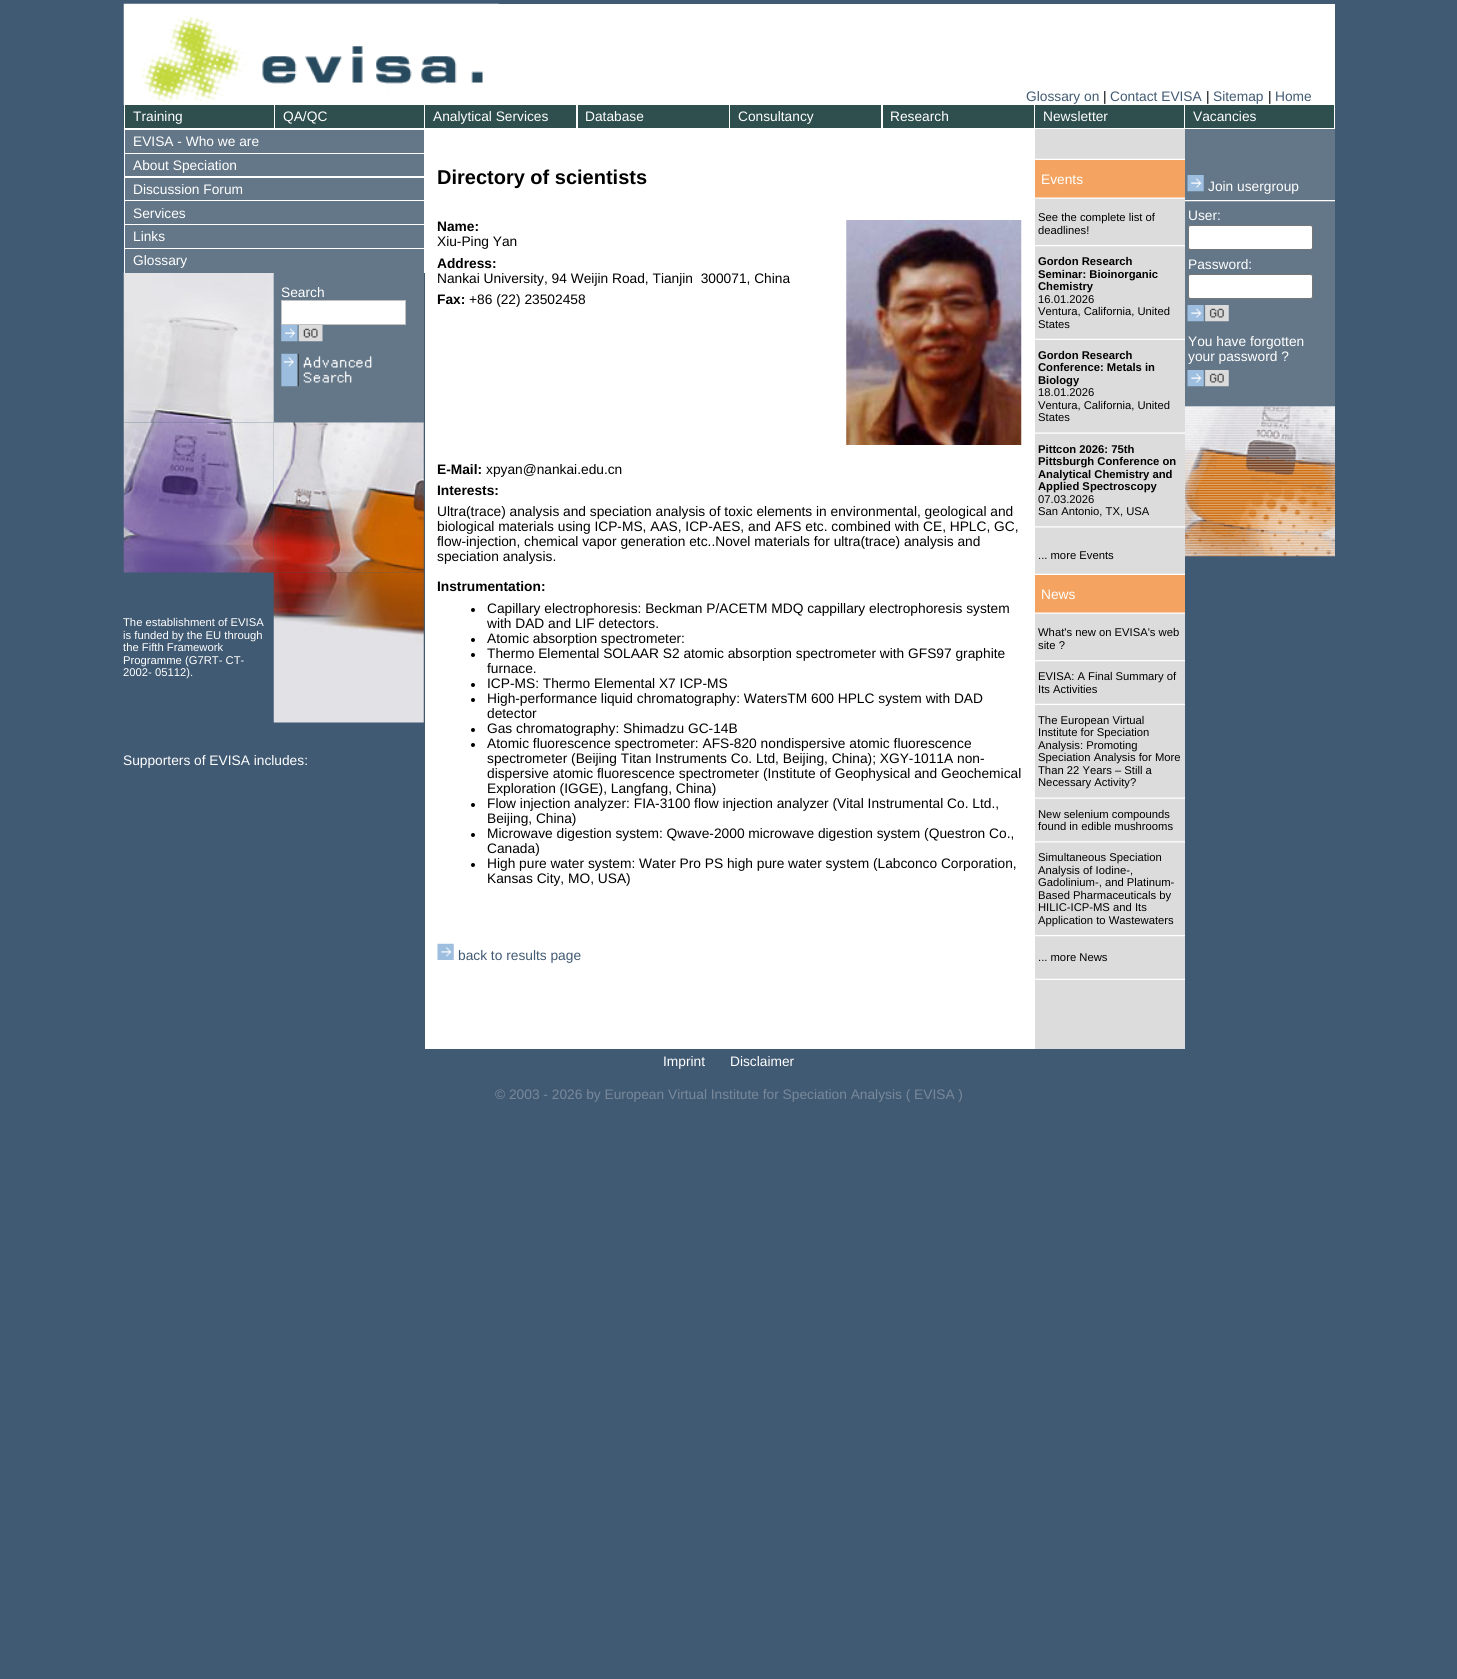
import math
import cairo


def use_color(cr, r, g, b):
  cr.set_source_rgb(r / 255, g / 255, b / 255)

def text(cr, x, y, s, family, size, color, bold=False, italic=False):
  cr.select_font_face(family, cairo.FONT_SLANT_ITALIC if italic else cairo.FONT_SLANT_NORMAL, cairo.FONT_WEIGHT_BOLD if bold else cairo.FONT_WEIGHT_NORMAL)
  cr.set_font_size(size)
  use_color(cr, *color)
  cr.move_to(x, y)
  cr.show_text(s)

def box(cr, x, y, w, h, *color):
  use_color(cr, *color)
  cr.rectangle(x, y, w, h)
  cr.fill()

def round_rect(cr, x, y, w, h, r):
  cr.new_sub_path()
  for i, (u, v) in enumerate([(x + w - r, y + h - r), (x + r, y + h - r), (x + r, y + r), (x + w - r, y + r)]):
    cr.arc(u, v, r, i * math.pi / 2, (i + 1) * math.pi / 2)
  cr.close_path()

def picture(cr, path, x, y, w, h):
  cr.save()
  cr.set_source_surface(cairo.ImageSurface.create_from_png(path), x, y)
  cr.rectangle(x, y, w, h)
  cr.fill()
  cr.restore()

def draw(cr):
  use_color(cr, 65, 90, 115)
  cr.paint()
  box(cr, 124, 4, 1211, 100, 255, 255, 255)
  picture(cr, "img_02.png", 123, 103, 1212, 26)
  picture(cr, "img_01.png", 123, 3, 376, 101)
  box(cr, 124, 104, 1211, 25, 255, 255, 255)
  box(cr, 125, 105, 149, 23, 47, 79, 79)
  box(cr, 275, 105, 149, 23, 47, 79, 79)
  box(cr, 425, 105, 151, 23, 47, 79, 79)
  box(cr, 578, 105, 151, 23, 47, 79, 79)
  box(cr, 730, 105, 151, 23, 47, 79, 79)
  box(cr, 883, 105, 151, 23, 47, 79, 79)
  box(cr, 1035, 105, 149, 23, 47, 79, 79)
  box(cr, 1185, 105, 149, 23, 47, 79, 79)
  picture(cr, "img_03.png", 123, 272, 151, 151)
  box(cr, 124, 129, 301, 144, 255, 255, 255)
  box(cr, 125, 130, 299, 23, 100, 119, 136)
  box(cr, 125, 154, 299, 22, 100, 119, 136)
  box(cr, 125, 178, 299, 22, 100, 119, 136)
  box(cr, 125, 201, 299, 23, 100, 119, 136)
  box(cr, 125, 225, 299, 23, 100, 119, 136)
  box(cr, 125, 249, 299, 24, 100, 119, 136)
  box(cr, 274, 273, 150, 150, 100, 119, 136)
  use_color(cr, 255, 255, 255)
  cr.rectangle(281.5, 300.5, 124, 24)
  cr.fill_preserve()
  use_color(cr, 194, 194, 194)
  cr.set_line_width(1)
  cr.stroke()
  picture(cr, "img_04.png", 281, 325, 42, 17)
  picture(cr, "img_05.png", 281, 353, 91, 34)
  picture(cr, "img_06.png", 123, 422, 151, 151)
  picture(cr, "img_07.png", 273, 422, 151, 151)
  picture(cr, "img_08.png", 273, 572, 151, 151)
  box(cr, 425, 129, 610, 920, 255, 255, 255)
  picture(cr, "img_09.png", 846, 220, 176, 225)
  use_color(cr, 0, 0, 0)
  cr.arc(473, 610, 2, 0, 2 * math.pi)
  cr.fill()
  cr.arc(473, 640, 2, 0, 2 * math.pi)
  cr.fill()
  cr.arc(473, 655, 2, 0, 2 * math.pi)
  cr.fill()
  cr.arc(473, 685, 2, 0, 2 * math.pi)
  cr.fill()
  cr.arc(473, 700, 2, 0, 2 * math.pi)
  cr.fill()
  cr.arc(473, 730, 2, 0, 2 * math.pi)
  cr.fill()
  cr.arc(473, 745, 2, 0, 2 * math.pi)
  cr.fill()
  cr.arc(473, 805, 2, 0, 2 * math.pi)
  cr.fill()
  cr.arc(473, 835, 2, 0, 2 * math.pi)
  cr.fill()
  cr.arc(473, 865, 2, 0, 2 * math.pi)
  cr.fill()
  picture(cr, "img_10.png", 437, 943, 17, 17)
  box(cr, 1035, 129, 150, 920, 220, 220, 220)
  picture(cr, "img_11.png", 1035, 158, 150, 2)
  box(cr, 1035, 160, 150, 38, 244, 164, 96)
  picture(cr, "img_12.png", 1035, 197, 150, 2)
  picture(cr, "img_13.png", 1035, 245, 150, 2)
  picture(cr, "img_11.png", 1035, 338, 150, 2)
  picture(cr, "img_14.png", 1035, 432, 150, 2)
  picture(cr, "img_15.png", 1035, 526, 150, 2)
  picture(cr, "img_11.png", 1035, 573, 150, 2)
  box(cr, 1035, 575, 150, 38, 244, 164, 96)
  picture(cr, "img_12.png", 1035, 612, 150, 2)
  picture(cr, "img_13.png", 1035, 660, 150, 2)
  picture(cr, "img_11.png", 1035, 703, 150, 2)
  picture(cr, "img_14.png", 1035, 797, 150, 2)
  picture(cr, "img_15.png", 1035, 841, 150, 2)
  picture(cr, "img_13.png", 1035, 935, 150, 2)
  picture(cr, "img_11.png", 1035, 978, 150, 2)
  box(cr, 1185, 129, 150, 277, 100, 119, 136)
  picture(cr, "img_16.png", 1187, 175, 17, 17)
  picture(cr, "img_17.png", 1185, 200, 150, 2)
  use_color(cr, 255, 255, 255)
  round_rect(cr, 1188.5, 225.5, 124, 24, 2)
  cr.fill_preserve()
  use_color(cr, 118, 118, 118)
  cr.stroke()
  use_color(cr, 255, 255, 255)
  round_rect(cr, 1188.5, 274.5, 124, 24, 2)
  cr.fill_preserve()
  use_color(cr, 118, 118, 118)
  cr.stroke()
  picture(cr, "img_18.png", 1187, 305, 42, 17)
  picture(cr, "img_18.png", 1187, 370, 42, 17)
  picture(cr, "img_19.png", 1185, 406, 150, 151)
  text(cr, 1026, 101, "Glossary on", "Liberation Sans", 13.75, (65, 90, 115))
  text(cr, 1103, 101, "|", "Liberation Sans", 13.75, (0, 0, 0))
  text(cr, 1110, 101, "Contact EVISA", "Liberation Sans", 13.75, (65, 90, 115))
  text(cr, 1206, 101, "|", "Liberation Sans", 13.75, (0, 0, 0))
  text(cr, 1213, 101, "Sitemap", "Liberation Sans", 13.75, (65, 90, 115))
  text(cr, 1268, 101, "|", "Liberation Sans", 13.75, (0, 0, 0))
  text(cr, 1275, 101, "Home", "Liberation Sans", 13.75, (65, 90, 115))
  text(cr, 133, 121, "Training", "Liberation Sans", 13.75, (255, 255, 255))
  text(cr, 283, 121, "QA/QC", "Liberation Sans", 13.75, (255, 255, 255))
  text(cr, 433, 121, "Analytical Services", "Liberation Sans", 13.75, (255, 255, 255))
  text(cr, 585, 121, "Database", "Liberation Sans", 13.75, (255, 255, 255))
  text(cr, 738, 121, "Consultancy", "Liberation Sans", 13.75, (255, 255, 255))
  text(cr, 890, 121, "Research", "Liberation Sans", 13.75, (255, 255, 255))
  text(cr, 1043, 121, "Newsletter", "Liberation Sans", 13.75, (255, 255, 255))
  text(cr, 1193, 121, "Vacancies", "Liberation Sans", 13.75, (255, 255, 255))
  text(cr, 133, 146, "EVISA - Who we are", "Liberation Sans", 13.75, (255, 255, 255))
  text(cr, 133, 170, "About Speciation", "Liberation Sans", 13.75, (255, 255, 255))
  text(cr, 133, 194, "Discussion Forum", "Liberation Sans", 13.75, (255, 255, 255))
  text(cr, 133, 218, "Services", "Liberation Sans", 13.75, (255, 255, 255))
  text(cr, 133, 241, "Links", "Liberation Sans", 13.75, (255, 255, 255))
  text(cr, 133, 265, "Glossary", "Liberation Sans", 13.75, (255, 255, 255))
  text(cr, 281, 297, "Search", "Liberation Sans", 13.75, (255, 255, 255))
  text(cr, 123, 626, "The establishment of EVISA", "Liberation Sans", 11.25, (255, 255, 255))
  text(cr, 123, 639, "is funded by the EU through", "Liberation Sans", 11.25, (255, 255, 255))
  text(cr, 123, 651, "the Fifth Framework", "Liberation Sans", 11.25, (255, 255, 255))
  text(cr, 123, 664, "Programme (G7RT- CT-", "Liberation Sans", 11.25, (255, 255, 255))
  text(cr, 123, 676, "2002- 05112).", "Liberation Sans", 11.25, (255, 255, 255))
  text(cr, 123, 765, "Supporters of EVISA includes:", "Liberation Sans", 13.75, (255, 255, 255))
  text(cr, 437, 184, "Directory of scientists", "Liberation Sans", 20, (0, 0, 0), bold=True)
  text(cr, 437, 231, "Name:", "Liberation Sans", 13.75, (0, 0, 0), bold=True)
  text(cr, 437, 246, "Xiu-Ping Yan", "Liberation Sans", 13.75, (0, 0, 0))
  text(cr, 437, 268, "Address:", "Liberation Sans", 13.75, (0, 0, 0), bold=True)
  text(cr, 437, 283, "Nankai University, 94 Weijin Road, Tianjin  300071, China", "Liberation Sans", 13.75, (0, 0, 0))
  text(cr, 437, 304, "Fax:", "Liberation Sans", 13.75, (0, 0, 0), bold=True)
  text(cr, 469, 304, "+86 (22) 23502458", "Liberation Sans", 13.75, (0, 0, 0))
  text(cr, 437, 474, "E-Mail:", "Liberation Sans", 13.75, (0, 0, 0), bold=True)
  text(cr, 486, 474, "xpyan@nankai.edu.cn", "Liberation Sans", 13.75, (0, 0, 0))
  text(cr, 437, 495, "Interests:", "Liberation Sans", 13.75, (0, 0, 0), bold=True)
  text(cr, 437, 516, "Ultra(trace) analysis and speciation analysis of toxic elements in environmental, geological and", "Liberation Sans", 13.75, (0, 0, 0))
  text(cr, 437, 531, "biological materials using ICP-MS, AAS, ICP-AES, and AFS etc. combined with CE, HPLC, GC,", "Liberation Sans", 13.75, (0, 0, 0))
  text(cr, 437, 546, "flow-injection, chemical vapor generation etc..Novel materials for ultra(trace) analysis and", "Liberation Sans", 13.75, (0, 0, 0))
  text(cr, 437, 561, "speciation analysis.", "Liberation Sans", 13.75, (0, 0, 0))
  text(cr, 437, 591, "Instrumentation:", "Liberation Sans", 13.75, (0, 0, 0), bold=True)
  text(cr, 487, 613, "Capillary electrophoresis: Beckman P/ACETM MDQ cappillary electrophoresis system", "Liberation Sans", 13.75, (0, 0, 0))
  text(cr, 487, 628, "with DAD and LIF detectors.", "Liberation Sans", 13.75, (0, 0, 0))
  text(cr, 487, 643, "Atomic absorption spectrometer:", "Liberation Sans", 13.75, (0, 0, 0))
  text(cr, 487, 658, "Thermo Elemental SOLAAR S2 atomic absorption spectrometer with GFS97 graphite", "Liberation Sans", 13.75, (0, 0, 0))
  text(cr, 487, 673, "furnace.", "Liberation Sans", 13.75, (0, 0, 0))
  text(cr, 487, 688, "ICP-MS: Thermo Elemental X7 ICP-MS", "Liberation Sans", 13.75, (0, 0, 0))
  text(cr, 487, 703, "High-performance liquid chromatography: WatersTM 600 HPLC system with DAD", "Liberation Sans", 13.75, (0, 0, 0))
  text(cr, 487, 718, "detector", "Liberation Sans", 13.75, (0, 0, 0))
  text(cr, 487, 733, "Gas chromatography: Shimadzu GC-14B", "Liberation Sans", 13.75, (0, 0, 0))
  text(cr, 487, 748, "Atomic fluorescence spectrometer: AFS-820 nondispersive atomic fluorescence", "Liberation Sans", 13.75, (0, 0, 0))
  text(cr, 487, 763, "spectrometer (Beijing Titan Instruments Co. Ltd, Beijing, China); XGY-1011A non-", "Liberation Sans", 13.75, (0, 0, 0))
  text(cr, 487, 778, "dispersive atomic fluorescence spectrometer (Institute of Geophysical and Geochemical", "Liberation Sans", 13.75, (0, 0, 0))
  text(cr, 487, 793, "Exploration (IGGE), Langfang, China)", "Liberation Sans", 13.75, (0, 0, 0))
  text(cr, 487, 808, "Flow injection analyzer: FIA-3100 flow injection analyzer (Vital Instrumental Co. Ltd.,", "Liberation Sans", 13.75, (0, 0, 0))
  text(cr, 487, 823, "Beijing, China)", "Liberation Sans", 13.75, (0, 0, 0))
  text(cr, 487, 838, "Microwave digestion system: Qwave-2000 microwave digestion system (Questron Co.,", "Liberation Sans", 13.75, (0, 0, 0))
  text(cr, 487, 853, "Canada)", "Liberation Sans", 13.75, (0, 0, 0))
  text(cr, 487, 868, "High pure water system: Water Pro PS high pure water system (Labconco Corporation,", "Liberation Sans", 13.75, (0, 0, 0))
  text(cr, 487, 883, "Kansas City, MO, USA)", "Liberation Sans", 13.75, (0, 0, 0))
  text(cr, 458, 960, "back to results page", "Liberation Sans", 13.75, (65, 90, 115))
  text(cr, 1041, 184, "Events", "Liberation Sans", 13.75, (255, 255, 255))
  text(cr, 1038, 221, "See the complete list of", "Liberation Sans", 11.25, (0, 0, 0))
  text(cr, 1038, 234, "deadlines!", "Liberation Sans", 11.25, (0, 0, 0))
  text(cr, 1038, 265, "Gordon Research", "Liberation Sans", 11.25, (0, 0, 0), bold=True)
  text(cr, 1038, 278, "Seminar: Bioinorganic", "Liberation Sans", 11.25, (0, 0, 0), bold=True)
  text(cr, 1038, 290, "Chemistry", "Liberation Sans", 11.25, (0, 0, 0), bold=True)
  text(cr, 1038, 303, "16.01.2026", "Liberation Sans", 11.25, (0, 0, 0))
  text(cr, 1038, 315, "Ventura, California, United", "Liberation Sans", 11.25, (0, 0, 0))
  text(cr, 1038, 328, "States", "Liberation Sans", 11.25, (0, 0, 0))
  text(cr, 1038, 359, "Gordon Research", "Liberation Sans", 11.25, (0, 0, 0), bold=True)
  text(cr, 1038, 371, "Conference: Metals in", "Liberation Sans", 11.25, (0, 0, 0), bold=True)
  text(cr, 1038, 384, "Biology", "Liberation Sans", 11.25, (0, 0, 0), bold=True)
  text(cr, 1038, 396, "18.01.2026", "Liberation Sans", 11.25, (0, 0, 0))
  text(cr, 1038, 409, "Ventura, California, United", "Liberation Sans", 11.25, (0, 0, 0))
  text(cr, 1038, 421, "States", "Liberation Sans", 11.25, (0, 0, 0))
  text(cr, 1038, 453, "Pittcon 2026: 75th", "Liberation Sans", 11.25, (0, 0, 0), bold=True)
  text(cr, 1038, 465, "Pittsburgh Conference on", "Liberation Sans", 11.25, (0, 0, 0), bold=True)
  text(cr, 1038, 478, "Analytical Chemistry and", "Liberation Sans", 11.25, (0, 0, 0), bold=True)
  text(cr, 1038, 490, "Applied Spectroscopy", "Liberation Sans", 11.25, (0, 0, 0), bold=True)
  text(cr, 1038, 503, "07.03.2026", "Liberation Sans", 11.25, (0, 0, 0))
  text(cr, 1038, 515, "San Antonio, TX, USA", "Liberation Sans", 11.25, (0, 0, 0))
  text(cr, 1038, 559, "... more Events", "Liberation Sans", 11.25, (0, 0, 0))
  text(cr, 1041, 599, "News", "Liberation Sans", 13.75, (255, 255, 255))
  text(cr, 1038, 636, "What's new on EVISA's web", "Liberation Sans", 11.25, (0, 0, 0))
  text(cr, 1038, 649, "site ?", "Liberation Sans", 11.25, (0, 0, 0))
  text(cr, 1038, 680, "EVISA: A Final Summary of", "Liberation Sans", 11.25, (0, 0, 0))
  text(cr, 1038, 693, "Its Activities", "Liberation Sans", 11.25, (0, 0, 0))
  text(cr, 1038, 724, "The European Virtual", "Liberation Sans", 11.25, (0, 0, 0))
  text(cr, 1038, 736, "Institute for Speciation", "Liberation Sans", 11.25, (0, 0, 0))
  text(cr, 1038, 749, "Analysis: Promoting", "Liberation Sans", 11.25, (0, 0, 0))
  text(cr, 1038, 761, "Speciation Analysis for More", "Liberation Sans", 11.25, (0, 0, 0))
  text(cr, 1038, 774, "Than 22 Years – Still a", "Liberation Sans", 11.25, (0, 0, 0))
  text(cr, 1038, 786, "Necessary Activity?", "Liberation Sans", 11.25, (0, 0, 0))
  text(cr, 1038, 818, "New selenium compounds", "Liberation Sans", 11.25, (0, 0, 0))
  text(cr, 1038, 830, "found in edible mushrooms", "Liberation Sans", 11.25, (0, 0, 0))
  text(cr, 1038, 861, "Simultaneous Speciation", "Liberation Sans", 11.25, (0, 0, 0))
  text(cr, 1038, 874, "Analysis of Iodine-,", "Liberation Sans", 11.25, (0, 0, 0))
  text(cr, 1038, 886, "Gadolinium-, and Platinum-", "Liberation Sans", 11.25, (0, 0, 0))
  text(cr, 1038, 899, "Based Pharmaceuticals by", "Liberation Sans", 11.25, (0, 0, 0))
  text(cr, 1038, 911, "HILIC-ICP-MS and Its", "Liberation Sans", 11.25, (0, 0, 0))
  text(cr, 1038, 924, "Application to Wastewaters", "Liberation Sans", 11.25, (0, 0, 0))
  text(cr, 1038, 961, "... more News", "Liberation Sans", 11.25, (0, 0, 0))
  text(cr, 1208, 191, "Join usergroup", "Liberation Sans", 13.75, (255, 255, 255))
  text(cr, 1188, 220, "User:", "Liberation Sans", 13.75, (255, 255, 255))
  text(cr, 1188, 269, "Password:", "Liberation Sans", 13.75, (255, 255, 255))
  text(cr, 1188, 346, "You have forgotten", "Liberation Sans", 13.75, (255, 255, 255))
  text(cr, 1188, 361, "your password ?", "Liberation Sans", 13.75, (255, 255, 255))
  text(cr, 663, 1066, "Imprint", "Liberation Sans", 13.75, (255, 255, 255))
  text(cr, 730, 1066, "Disclaimer", "Liberation Sans", 13.75, (255, 255, 255))
  text(cr, 495, 1099, "© 2003 - 2026 by European Virtual Institute for Speciation Analysis ( EVISA )", "Liberation Sans", 13.75, (119, 136, 153))


surface = cairo.ImageSurface(cairo.FORMAT_RGB24, 1457, 1679)
cr = cairo.Context(surface)
options = cairo.FontOptions()
options.set_hint_metrics(cairo.HINT_METRICS_OFF)
options.set_hint_style(cairo.HINT_STYLE_NONE)
cr.set_font_options(options)
cr.set_miter_limit(4)
draw(cr)
surface.write_to_png("out.png")
